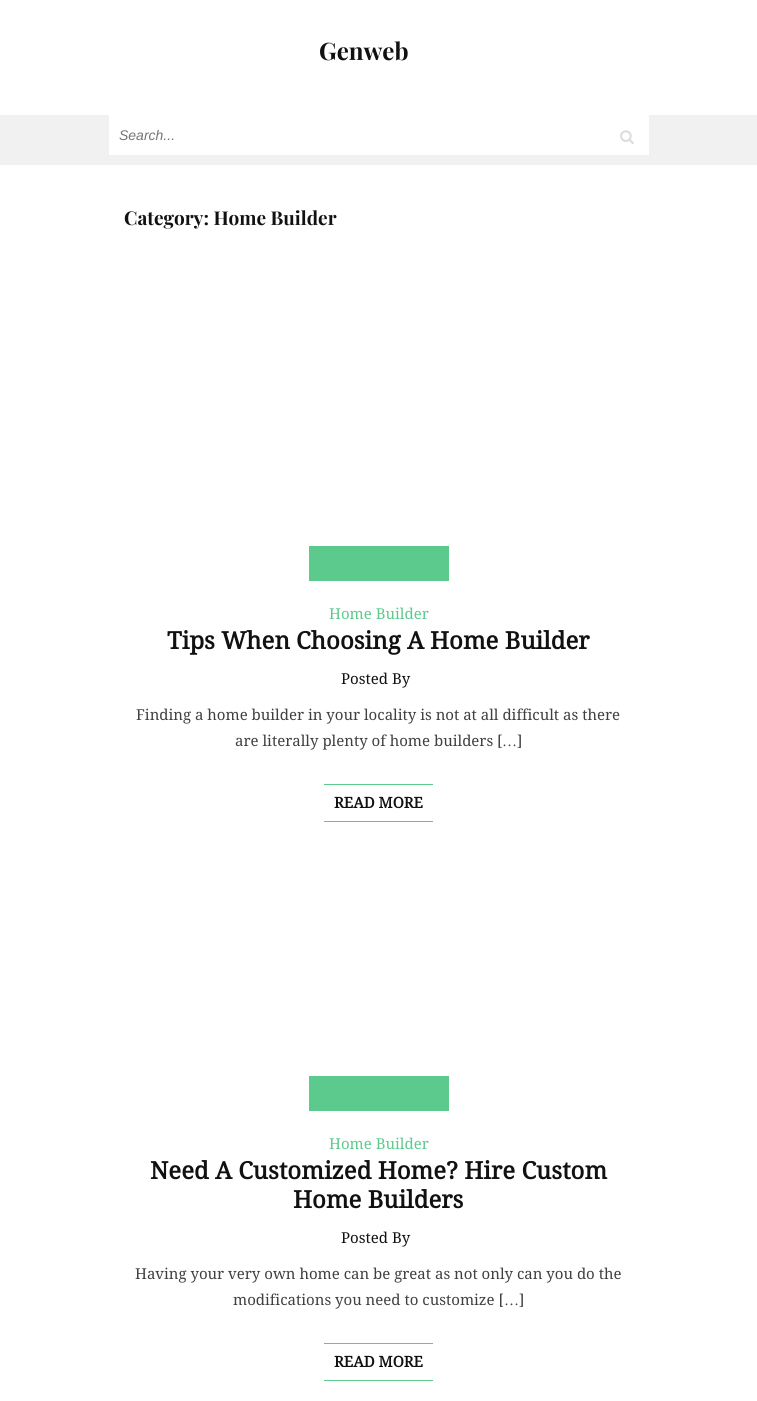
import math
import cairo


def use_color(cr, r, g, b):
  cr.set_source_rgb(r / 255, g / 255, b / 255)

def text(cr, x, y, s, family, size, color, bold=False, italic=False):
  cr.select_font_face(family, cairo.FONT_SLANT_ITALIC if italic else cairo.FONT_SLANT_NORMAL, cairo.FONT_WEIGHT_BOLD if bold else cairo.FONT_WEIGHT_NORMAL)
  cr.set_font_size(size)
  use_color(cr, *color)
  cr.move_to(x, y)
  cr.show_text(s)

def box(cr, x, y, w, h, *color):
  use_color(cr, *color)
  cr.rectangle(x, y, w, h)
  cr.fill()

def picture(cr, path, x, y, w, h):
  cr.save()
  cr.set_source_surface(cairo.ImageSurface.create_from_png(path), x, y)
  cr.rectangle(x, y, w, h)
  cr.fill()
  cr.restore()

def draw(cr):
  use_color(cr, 255, 255, 255)
  cr.paint()
  box(cr, 0, 115, 757, 50, 241, 241, 241)
  box(cr, 109, 115, 540, 40, 255, 255, 255)
  picture(cr, "img_01.png", 620, 130, 14, 14)
  box(cr, 309, 546, 140, 35, 92, 202, 141)
  box(cr, 324, 784, 109, 1, 92, 202, 141)
  box(cr, 324, 821, 109, 1, 92, 202, 141)
  box(cr, 309, 1076, 140, 35, 92, 202, 141)
  box(cr, 324, 1343, 109, 1, 92, 202, 141)
  box(cr, 324, 1380, 109, 1, 92, 202, 141)
  text(cr, 319, 60, "Genweb", "Playfair Display", 24, (17, 17, 17), bold=True)
  text(cr, 119, 140, "Search...", "Liberation Sans", 14, (117, 117, 117), italic=True)
  text(cr, 124, 225, "Category: Home Builder", "Playfair Display", 19, (17, 17, 17), bold=True)
  text(cr, 329, 619, "Home Builder", "Droid Serif", 15, (92, 202, 141))
  text(cr, 167, 649, "Tips When Choosing A Home Builder", "Droid Serif", 24, (17, 17, 17), bold=True)
  text(cr, 341, 684, "Posted By", "Droid Serif", 15, (17, 17, 17))
  text(cr, 136, 720, "Finding a home builder in your locality is not at all difficult as there", "Droid Serif", 15, (64, 64, 64))
  text(cr, 235, 746, "are literally plenty of home builders [", "Droid Serif", 15, (64, 64, 64))
  text(cr, 502, 746, "…", "Liberation Serif", 15, (64, 64, 64))
  text(cr, 517, 746, "]", "Droid Serif", 15, (64, 64, 64))
  text(cr, 334, 808, "READ MORE", "Droid Serif", 15, (17, 17, 17), bold=True)
  text(cr, 329, 1149, "Home Builder", "Droid Serif", 15, (92, 202, 141))
  text(cr, 150, 1179, "Need A Customized Home? Hire Custom", "Droid Serif", 24, (17, 17, 17), bold=True)
  text(cr, 293, 1208, "Home Builders", "Droid Serif", 24, (17, 17, 17), bold=True)
  text(cr, 341, 1243, "Posted By", "Droid Serif", 15, (17, 17, 17))
  text(cr, 135, 1279, "Having your very own home can be great as not only can you do the", "Droid Serif", 15, (64, 64, 64))
  text(cr, 233, 1305, "modifications you need to customize [", "Droid Serif", 15, (64, 64, 64))
  text(cr, 504, 1305, "…", "Liberation Serif", 15, (64, 64, 64))
  text(cr, 519, 1305, "]", "Droid Serif", 15, (64, 64, 64))
  text(cr, 334, 1367, "READ MORE", "Droid Serif", 15, (17, 17, 17), bold=True)


surface = cairo.ImageSurface(cairo.FORMAT_RGB24, 757, 1401)
cr = cairo.Context(surface)
options = cairo.FontOptions()
options.set_hint_metrics(cairo.HINT_METRICS_OFF)
options.set_hint_style(cairo.HINT_STYLE_NONE)
cr.set_font_options(options)
cr.set_miter_limit(4)
draw(cr)
surface.write_to_png("out.png")
